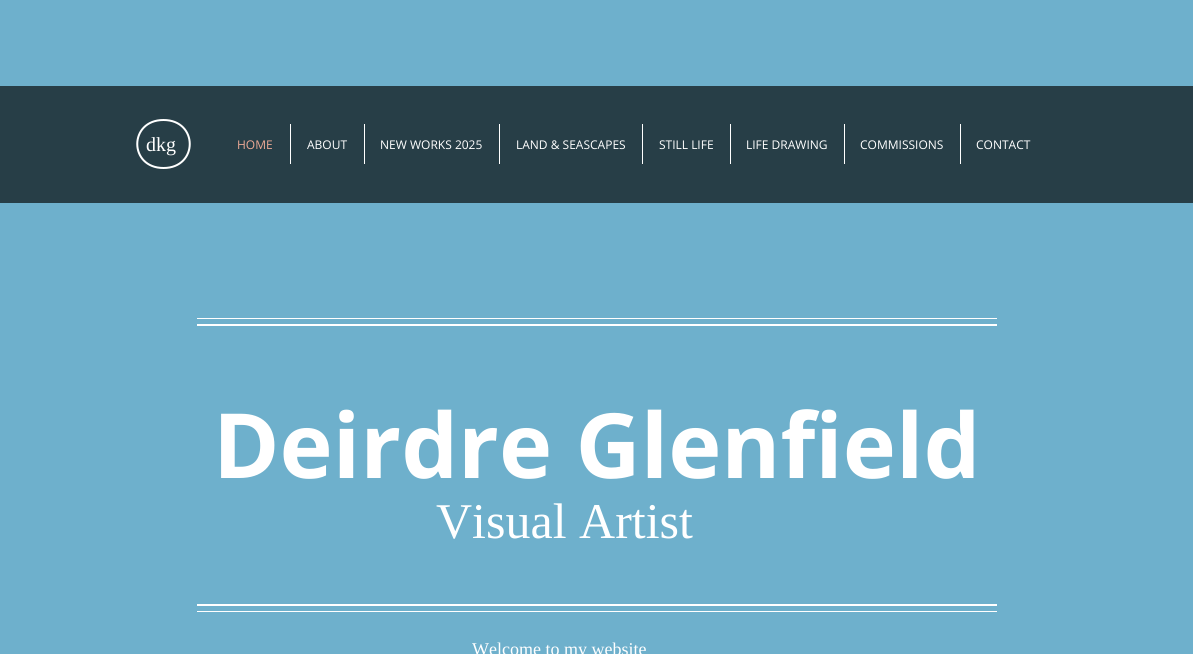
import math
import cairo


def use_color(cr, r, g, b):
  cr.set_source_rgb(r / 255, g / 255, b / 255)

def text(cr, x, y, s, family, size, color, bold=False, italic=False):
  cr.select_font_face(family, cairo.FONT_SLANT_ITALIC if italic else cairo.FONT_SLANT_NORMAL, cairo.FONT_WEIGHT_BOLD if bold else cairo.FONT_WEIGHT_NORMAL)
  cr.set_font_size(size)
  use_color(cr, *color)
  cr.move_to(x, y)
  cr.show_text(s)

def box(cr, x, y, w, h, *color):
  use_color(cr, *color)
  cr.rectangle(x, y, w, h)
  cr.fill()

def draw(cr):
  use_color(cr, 110, 176, 204)
  cr.paint()
  box(cr, 0, 86, 1193, 117, 39, 62, 71)
  cr.new_path()
  cr.move_to(163.5, 120)
  cr.curve_to(198.5, 120, 198.5, 168, 163.5, 168)
  cr.curve_to(128.5, 168, 128.5, 120, 163.5, 120)
  cr.close_path()
  use_color(cr, 255, 255, 255)
  cr.stroke()
  box(cr, 290, 124, 1, 40, 255, 255, 255)
  box(cr, 364, 124, 1, 40, 255, 255, 255)
  box(cr, 499, 124, 1, 40, 255, 255, 255)
  box(cr, 642, 124, 1, 40, 255, 255, 255)
  box(cr, 730, 124, 1, 40, 255, 255, 255)
  box(cr, 844, 124, 1, 40, 255, 255, 255)
  box(cr, 960, 124, 1, 40, 255, 255, 255)
  box(cr, 197, 318, 800, 1, 255, 255, 255)
  box(cr, 197, 324, 800, 2, 255, 255, 255)
  box(cr, 197, 604, 800, 2, 255, 255, 255)
  box(cr, 197, 611, 800, 1, 255, 255, 255)
  text(cr, 146, 151, "dkg", "Liberation Serif", 20, (255, 255, 255))
  text(cr, 237, 149, "HOME", "Open Sans", 12, (236, 169, 149))
  text(cr, 307, 149, "ABOUT", "Open Sans", 12, (255, 255, 255))
  text(cr, 380, 149, "NEW WORKS 2025", "Open Sans", 12, (255, 255, 255))
  text(cr, 516, 149, "LAND & SEASCAPES", "Open Sans", 12, (255, 255, 255))
  text(cr, 659, 149, "STILL LIFE", "Open Sans", 12, (255, 255, 255))
  text(cr, 746, 149, "LIFE DRAWING", "Open Sans", 12, (255, 255, 255))
  text(cr, 860, 149, "COMMISSIONS", "Open Sans", 12, (255, 255, 255))
  text(cr, 976, 149, "CONTACT", "Open Sans", 12, (255, 255, 255))
  text(cr, 213, 478, "Deirdre Glenfield", "Open Sans", 90, (255, 255, 255), bold=True)
  text(cr, 436, 538, "Visual Artist", "Liberation Serif", 50, (255, 255, 255))
  text(cr, 472, 655, "Welcome to my website", "Liberation Serif", 18, (255, 255, 255))


surface = cairo.ImageSurface(cairo.FORMAT_RGB24, 1193, 654)
cr = cairo.Context(surface)
options = cairo.FontOptions()
options.set_hint_metrics(cairo.HINT_METRICS_OFF)
options.set_hint_style(cairo.HINT_STYLE_NONE)
cr.set_font_options(options)
cr.set_miter_limit(4)
draw(cr)
surface.write_to_png("out.png")
